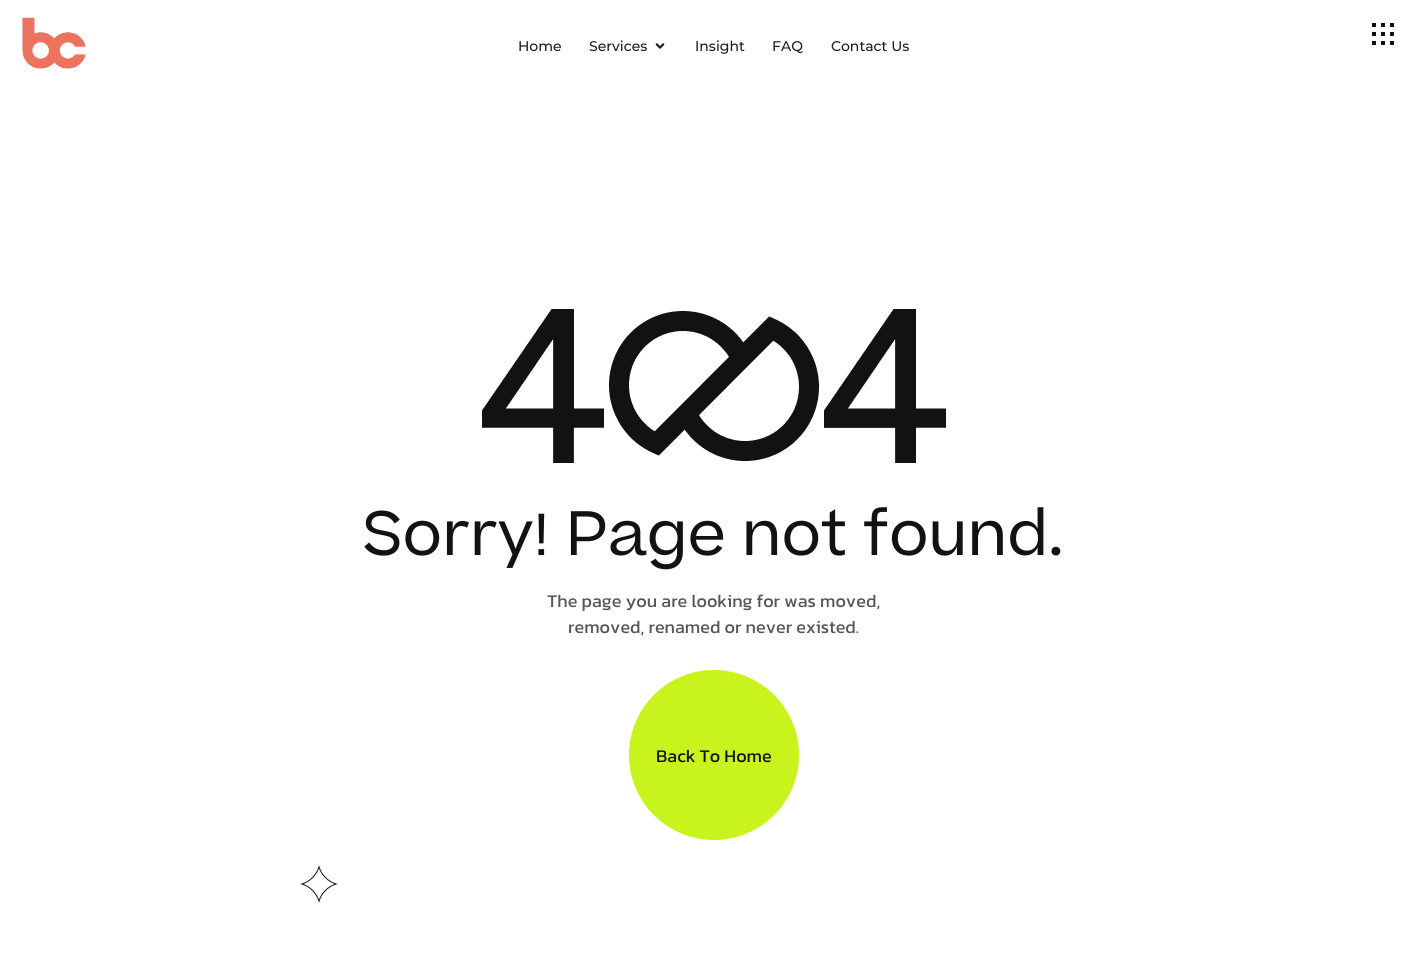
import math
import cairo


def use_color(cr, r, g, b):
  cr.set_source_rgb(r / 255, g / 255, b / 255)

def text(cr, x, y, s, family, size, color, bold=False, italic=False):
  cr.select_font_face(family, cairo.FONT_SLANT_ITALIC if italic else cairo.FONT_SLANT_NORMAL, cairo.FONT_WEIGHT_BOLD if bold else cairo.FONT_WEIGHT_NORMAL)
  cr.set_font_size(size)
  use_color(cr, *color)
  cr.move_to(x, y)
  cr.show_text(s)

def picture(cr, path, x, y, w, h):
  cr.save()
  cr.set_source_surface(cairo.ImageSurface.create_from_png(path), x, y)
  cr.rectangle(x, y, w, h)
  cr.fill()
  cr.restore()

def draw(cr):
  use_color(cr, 255, 255, 255)
  cr.paint()
  picture(cr, "img_01.png", 22, 17, 64, 52)
  picture(cr, "img_02.png", 1372, 23, 22, 22)
  picture(cr, "img_03.png", 655, 43, 10, 6)
  picture(cr, "img_04.png", 482, 309, 464, 154)
  use_color(cr, 201, 243, 29)
  cr.arc(714, 755, 85, 0, 2 * math.pi)
  cr.fill()
  cr.new_path()
  cr.move_to(319, 901)
  cr.curve_to(316.5, 893, 310, 886.5, 302, 884)
  cr.curve_to(310, 881.5, 316.5, 875, 319, 867)
  cr.curve_to(321.5, 875, 328, 881.5, 336, 884)
  cr.curve_to(328, 886.5, 321.5, 893, 319, 901)
  cr.close_path()
  use_color(cr, 18, 18, 18)
  cr.set_line_width(1)
  cr.stroke()
  text(cr, 518, 51, "Home", "Montserrat Medium", 14, (28, 29, 32))
  text(cr, 589, 51, "Services", "Montserrat Medium", 14, (28, 29, 32))
  text(cr, 695, 51, "Insight", "Montserrat Medium", 14, (28, 29, 32))
  text(cr, 772, 51, "FAQ", "Montserrat Medium", 14, (28, 29, 32))
  text(cr, 831, 51, "Contact Us", "Montserrat Medium", 14, (28, 29, 32))
  text(cr, 363, 555, "Sorry", "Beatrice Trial", 60, (18, 18, 18))
  text(cr, 533, 555, "!", "Liberation Sans", 60, (18, 18, 18))
  text(cr, 566, 555, "Page not found.", "Beatrice Trial", 60, (18, 18, 18))
  text(cr, 547, 607, "The page you are looking for was moved,", "Kanit", 18, (85, 85, 85))
  text(cr, 568, 633, "removed, renamed or never existed.", "Kanit", 18, (85, 85, 85))
  text(cr, 656, 762, "Back To Home", "Kanit", 18, (18, 18, 18))


surface = cairo.ImageSurface(cairo.FORMAT_RGB24, 1427, 956)
cr = cairo.Context(surface)
options = cairo.FontOptions()
options.set_hint_metrics(cairo.HINT_METRICS_OFF)
options.set_hint_style(cairo.HINT_STYLE_NONE)
cr.set_font_options(options)
cr.set_miter_limit(4)
draw(cr)
surface.write_to_png("out.png")
